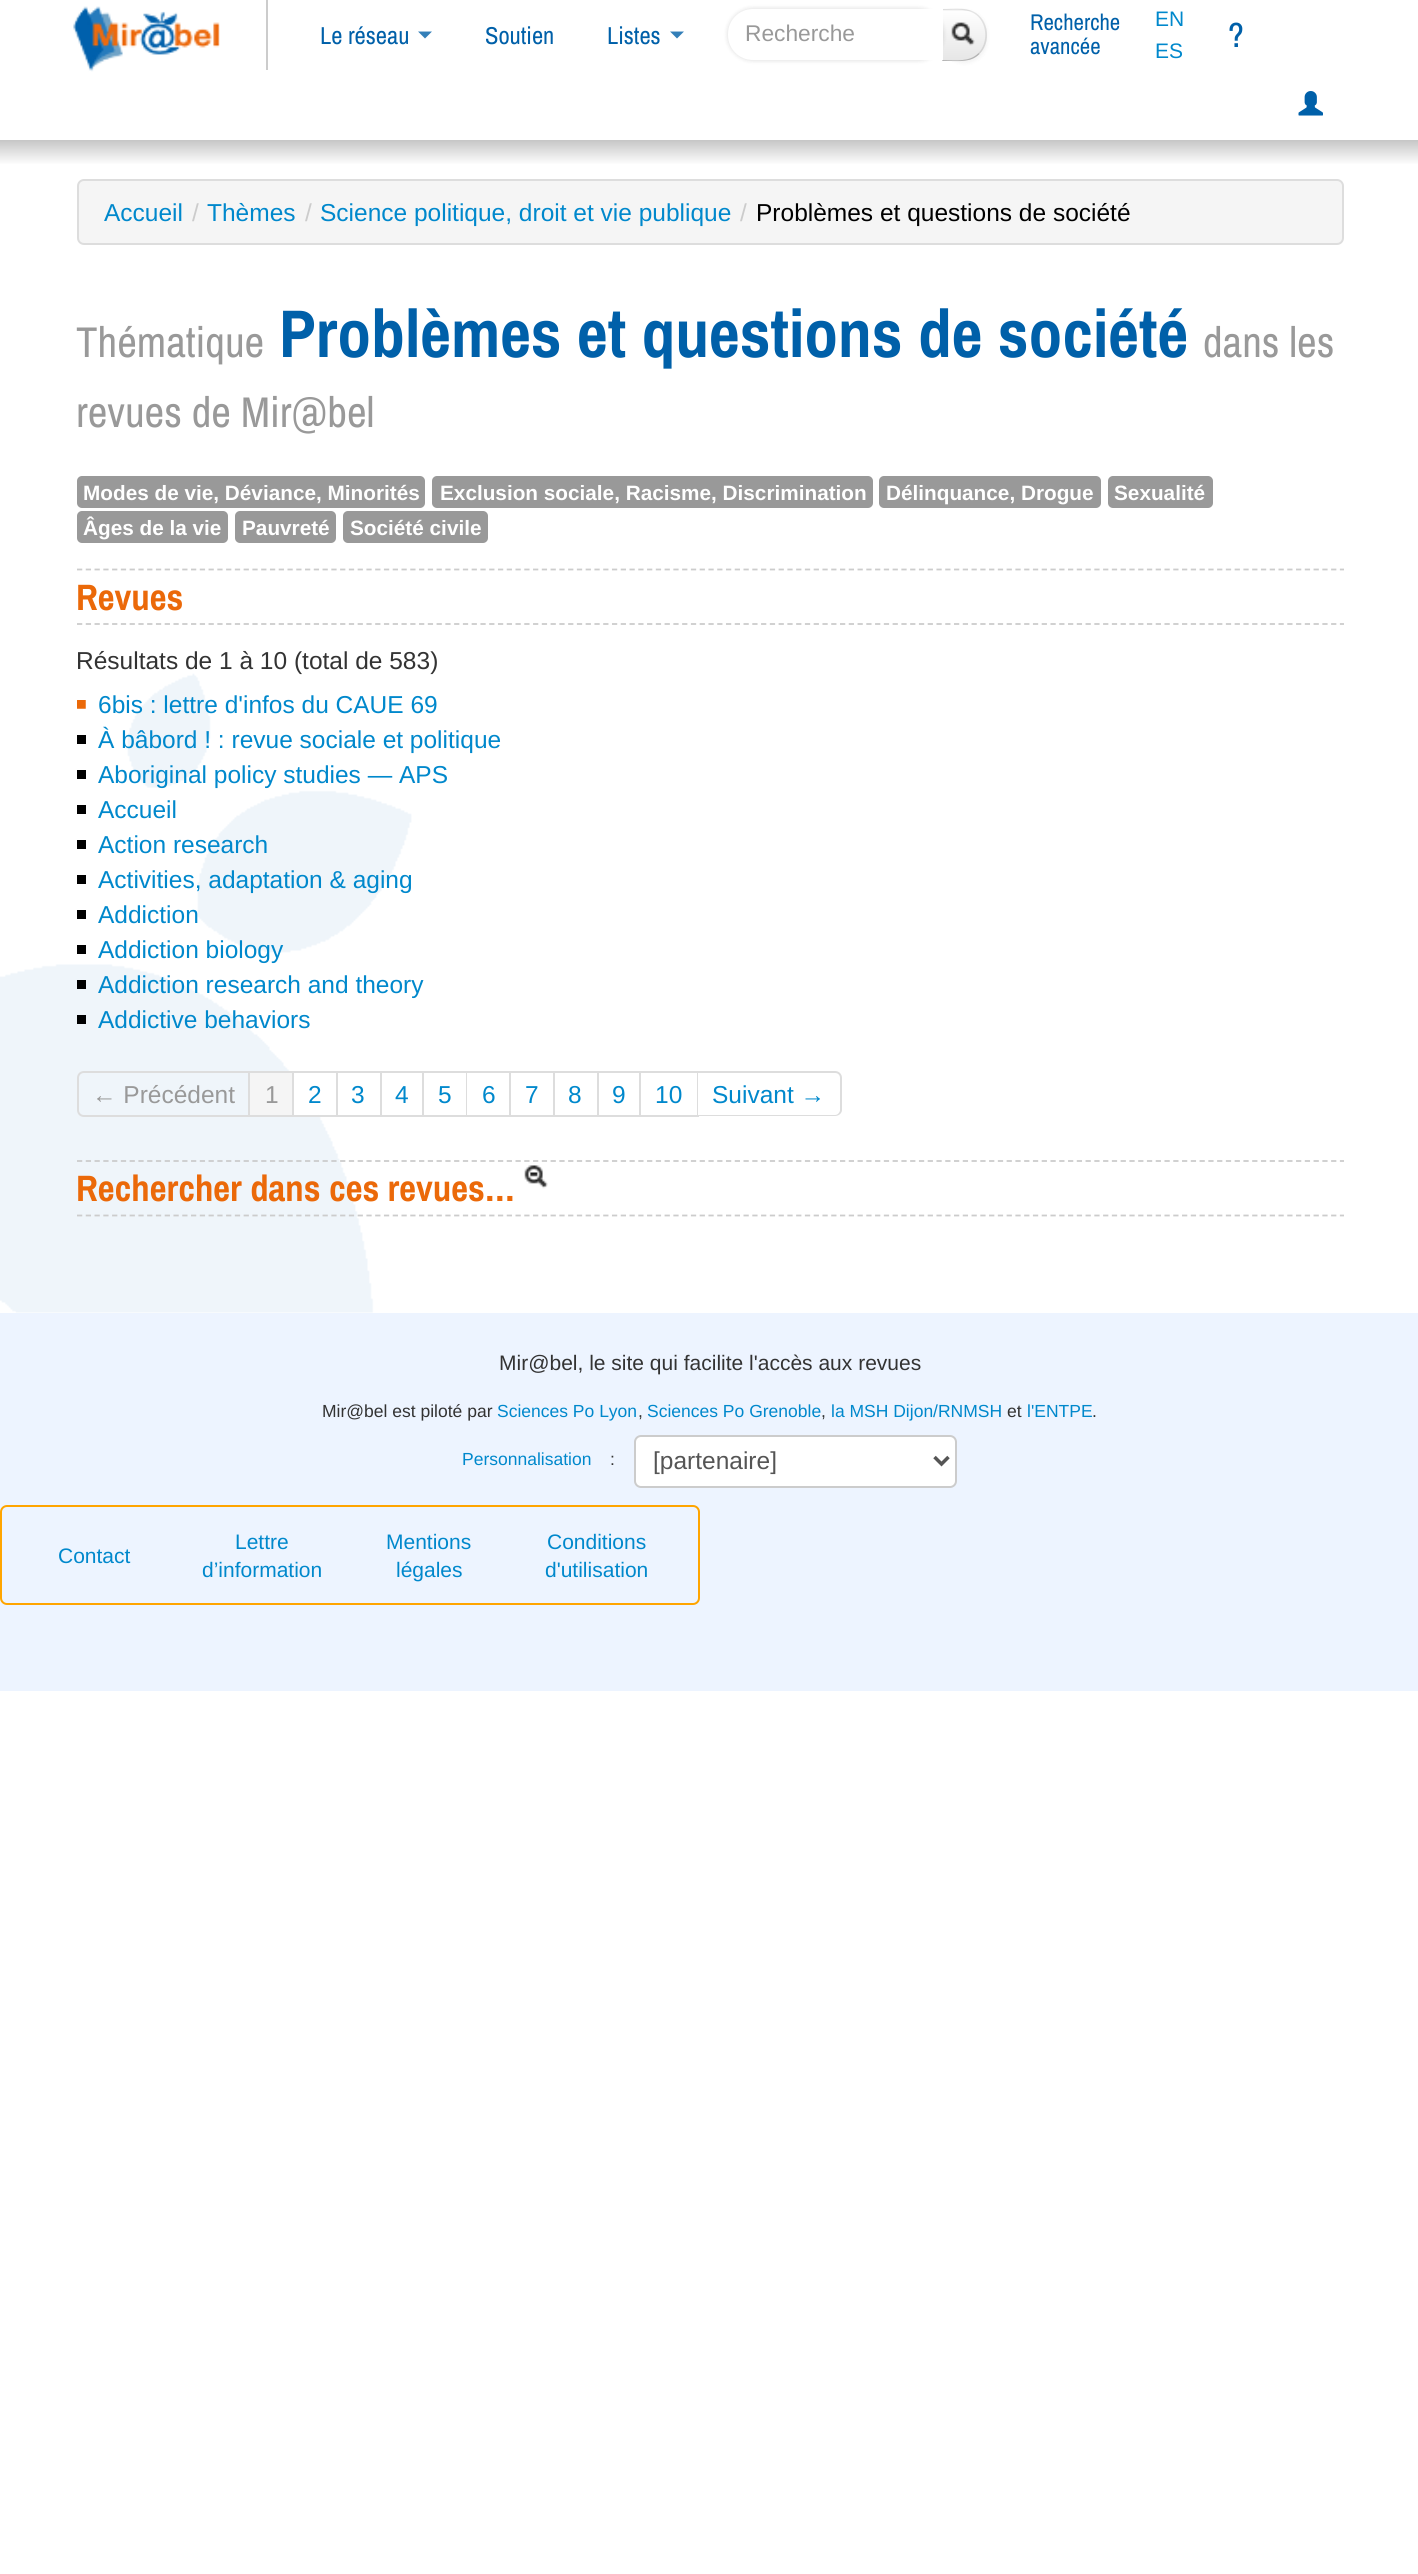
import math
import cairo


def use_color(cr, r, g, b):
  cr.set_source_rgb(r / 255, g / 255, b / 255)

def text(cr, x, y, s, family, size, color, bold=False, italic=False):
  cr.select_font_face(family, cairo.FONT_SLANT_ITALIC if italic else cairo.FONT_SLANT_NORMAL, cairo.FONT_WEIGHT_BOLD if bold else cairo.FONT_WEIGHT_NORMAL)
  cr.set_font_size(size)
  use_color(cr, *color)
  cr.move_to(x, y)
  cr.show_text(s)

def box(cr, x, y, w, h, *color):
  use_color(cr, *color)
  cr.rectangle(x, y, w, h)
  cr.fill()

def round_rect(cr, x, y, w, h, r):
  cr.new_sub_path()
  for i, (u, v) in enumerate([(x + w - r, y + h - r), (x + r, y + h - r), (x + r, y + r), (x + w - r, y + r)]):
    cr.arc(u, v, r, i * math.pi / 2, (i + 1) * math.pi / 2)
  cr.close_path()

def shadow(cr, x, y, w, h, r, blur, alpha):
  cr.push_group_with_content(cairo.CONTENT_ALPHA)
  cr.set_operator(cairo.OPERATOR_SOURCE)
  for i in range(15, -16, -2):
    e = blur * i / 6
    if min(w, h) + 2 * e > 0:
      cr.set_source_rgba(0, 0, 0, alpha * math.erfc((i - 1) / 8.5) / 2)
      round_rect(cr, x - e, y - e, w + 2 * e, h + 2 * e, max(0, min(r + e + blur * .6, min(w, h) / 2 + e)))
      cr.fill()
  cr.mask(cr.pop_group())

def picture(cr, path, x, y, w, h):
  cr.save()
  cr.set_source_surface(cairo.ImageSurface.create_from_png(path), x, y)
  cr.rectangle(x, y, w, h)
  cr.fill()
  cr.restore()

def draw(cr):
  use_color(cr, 255, 255, 255)
  cr.paint()
  box(cr, 266, 0, 2, 70, 204, 204, 204)
  picture(cr, "img_01.png", 73, 6, 147, 66)
  use_color(cr, 51, 127, 184)
  cr.new_path()
  cr.move_to(418, 31.5)
  cr.line_to(432, 31.5)
  cr.line_to(425, 38.5)
  cr.close_path()
  cr.fill()
  cr.new_path()
  cr.move_to(670, 31.5)
  cr.line_to(684, 31.5)
  cr.line_to(677, 38.5)
  cr.close_path()
  cr.fill()
  use_color(cr, 0, 0, 0)
  shadow(cr, 942, 11, 45, 52, 25, 2, 0.05)
  use_color(cr, 245, 245, 245)
  cr.new_path()
  cr.move_to(942, 9)
  cr.line_to(962, 9)
  cr.curve_to(976, 9, 987, 20, 987, 34)
  cr.line_to(987, 36)
  cr.curve_to(987, 50, 976, 61, 962, 61)
  cr.line_to(942, 61)
  cr.close_path()
  cr.fill()
  cr.save()
  cr.new_path()
  cr.move_to(942, 9)
  cr.line_to(962, 9)
  cr.curve_to(976, 9, 987, 20, 987, 34)
  cr.line_to(987, 36)
  cr.curve_to(987, 50, 976, 61, 962, 61)
  cr.line_to(942, 61)
  cr.close_path()
  cr.clip()
  gradient = cairo.LinearGradient(964, 10, 964, 60)
  gradient.add_color_stop_rgba(0, 1, 1, 1, 1)
  gradient.add_color_stop_rgba(1, 0.902, 0.902, 0.902, 1)
  cr.set_source(gradient)
  cr.rectangle(943, 11, 44, 49)
  cr.fill()
  cr.restore()
  cr.set_source_rgba(0, 0, 0, 0.1)
  cr.new_path()
  cr.move_to(942, 9)
  cr.line_to(943, 10)
  cr.curve_to(955, 10, 969.5, 7.5, 978.5, 17)
  cr.line_to(979.5, 16)
  cr.curve_to(969.5, 6, 955, 9, 942, 9)
  cr.close_path()
  cr.fill()
  cr.new_path()
  cr.move_to(987, 35)
  cr.curve_to(987, 42, 984.5, 49, 979.5, 54)
  cr.line_to(978.5, 53)
  cr.curve_to(987.5, 43.5, 987.5, 26.5, 978.5, 17)
  cr.line_to(979.5, 16)
  cr.curve_to(984.5, 21, 987, 28, 987, 35)
  cr.close_path()
  cr.fill()
  use_color(cr, 179, 179, 179)
  cr.new_path()
  cr.move_to(949, 61)
  cr.line_to(942, 61)
  cr.line_to(943, 60)
  cr.curve_to(955, 60, 969.5, 62.5, 978.5, 53)
  cr.line_to(979.5, 54)
  cr.curve_to(971, 62.5, 960, 61, 949, 61)
  cr.close_path()
  cr.fill()
  cr.set_source_rgba(0, 0, 0, 0.1)
  cr.new_path()
  cr.move_to(942, 61)
  cr.line_to(942, 9)
  cr.line_to(943, 10)
  cr.line_to(943, 60)
  cr.close_path()
  cr.fill()
  picture(cr, "img_02.png", 951, 22, 24, 24)
  use_color(cr, 0, 0, 0)
  shadow(cr, 728, 9, 215, 51, 25, 2.5, 0.15)
  use_color(cr, 255, 255, 255)
  cr.new_path()
  cr.move_to(753, 9)
  cr.line_to(943, 9)
  cr.line_to(943, 60)
  cr.line_to(753, 60)
  cr.curve_to(739, 60, 728, 49, 728, 35)
  cr.line_to(728, 34)
  cr.curve_to(728, 20, 739, 9, 753, 9)
  cr.close_path()
  cr.fill()
  picture(cr, "img_03.png", 1298, 91, 25, 25)
  gradient = cairo.LinearGradient(710, 140, 710, 165)
  gradient.add_color_stop_rgba(0, 0.776, 0.776, 0.776, 1)
  gradient.add_color_stop_rgba(1, 1, 1, 1, 1)
  cr.set_source(gradient)
  cr.rectangle(0, 140, 1418, 24)
  cr.fill()
  picture(cr, "img_04.png", 0, 673, 412, 640)
  use_color(cr, 245, 245, 245)
  round_rect(cr, 78, 180, 1265, 64, 6)
  cr.fill_preserve()
  use_color(cr, 221, 221, 221)
  cr.stroke()
  use_color(cr, 153, 153, 153)
  round_rect(cr, 77, 476, 348, 32, 5)
  cr.fill()
  round_rect(cr, 432, 476, 441, 32, 5)
  cr.fill()
  round_rect(cr, 879, 476, 222, 32, 5)
  cr.fill()
  round_rect(cr, 1108, 476, 105, 32, 5)
  cr.fill()
  round_rect(cr, 77, 511, 151, 32, 5)
  cr.fill()
  round_rect(cr, 235, 511, 101, 32, 5)
  cr.fill()
  round_rect(cr, 343, 511, 145, 32, 5)
  cr.fill()
  cr.new_path()
  cr.move_to(77, 569.5)
  cr.line_to(1344, 569.5)
  use_color(cr, 204, 204, 204)
  cr.set_line_width(1.8)
  cr.set_dash([5.25, 3.52])
  cr.stroke()
  cr.new_path()
  cr.move_to(77, 624)
  cr.line_to(1344, 624)
  cr.stroke()
  picture(cr, "img_05.png", 77, 700, 9, 9)
  box(cr, 77, 735, 9, 9, 0, 0, 0)
  box(cr, 77, 770, 9, 9, 0, 0, 0)
  box(cr, 77, 805, 9, 9, 0, 0, 0)
  box(cr, 77, 840, 9, 9, 0, 0, 0)
  box(cr, 77, 875, 9, 9, 0, 0, 0)
  box(cr, 77, 910, 9, 9, 0, 0, 0)
  box(cr, 77, 945, 9, 9, 0, 0, 0)
  box(cr, 77, 980, 9, 9, 0, 0, 0)
  box(cr, 77, 1015, 9, 9, 0, 0, 0)
  cr.new_path()
  cr.move_to(84, 1072)
  cr.line_to(249, 1072)
  cr.line_to(249, 1116)
  cr.line_to(84, 1116)
  cr.curve_to(80.5, 1116, 78, 1113.5, 78, 1110)
  cr.line_to(78, 1078)
  cr.curve_to(78, 1074.5, 80.5, 1072, 84, 1072)
  cr.close_path()
  use_color(cr, 221, 221, 221)
  cr.set_line_width(2)
  cr.set_dash([])
  cr.stroke()
  box(cr, 250, 1073, 42, 42, 245, 245, 245)
  box(cr, 250, 1071, 448, 2, 221, 221, 221)
  box(cr, 292, 1071, 2, 46, 221, 221, 221)
  box(cr, 250, 1115, 44, 2, 221, 221, 221)
  box(cr, 294, 1077, 24, 38, 255, 255, 255)
  box(cr, 336, 1071, 2, 46, 221, 221, 221)
  box(cr, 294, 1115, 44, 2, 221, 221, 221)
  box(cr, 380, 1071, 2, 46, 221, 221, 221)
  box(cr, 338, 1115, 44, 2, 221, 221, 221)
  box(cr, 422, 1071, 2, 46, 221, 221, 221)
  box(cr, 382, 1115, 42, 2, 221, 221, 221)
  box(cr, 466, 1071, 1, 46, 221, 221, 221)
  box(cr, 424, 1115, 43, 2, 221, 221, 221)
  box(cr, 509, 1071, 2, 46, 221, 221, 221)
  box(cr, 467, 1115, 44, 2, 221, 221, 221)
  box(cr, 553, 1071, 2, 46, 221, 221, 221)
  box(cr, 511, 1115, 44, 2, 221, 221, 221)
  box(cr, 597, 1071, 2, 46, 221, 221, 221)
  box(cr, 555, 1115, 44, 2, 221, 221, 221)
  box(cr, 639, 1071, 2, 46, 221, 221, 221)
  box(cr, 599, 1115, 42, 2, 221, 221, 221)
  box(cr, 697, 1071, 2, 46, 221, 221, 221)
  box(cr, 641, 1115, 57, 2, 221, 221, 221)
  use_color(cr, 255, 255, 255)
  cr.new_path()
  cr.move_to(698, 1073)
  cr.line_to(835, 1073)
  cr.curve_to(838, 1073, 840, 1075, 840, 1078)
  cr.line_to(840, 1110)
  cr.curve_to(840, 1113, 838, 1115, 835, 1115)
  cr.line_to(698, 1115)
  cr.close_path()
  cr.fill()
  use_color(cr, 221, 221, 221)
  cr.set_fill_rule(cairo.FILL_RULE_EVEN_ODD)
  cr.new_path()
  cr.move_to(698, 1071)
  cr.line_to(835, 1071)
  cr.curve_to(839, 1071, 842, 1074, 842, 1078)
  cr.line_to(842, 1110)
  cr.curve_to(842, 1113, 839, 1116, 835, 1116)
  cr.line_to(698, 1116)
  cr.close_path()
  cr.move_to(698, 1073)
  cr.line_to(835, 1073)
  cr.curve_to(838, 1073, 840, 1075, 840, 1078)
  cr.line_to(840, 1110)
  cr.curve_to(840, 1112, 838, 1115, 835, 1115)
  cr.line_to(698, 1115)
  cr.close_path()
  cr.fill()
  cr.new_path()
  cr.move_to(77, 1161)
  cr.line_to(1344, 1161)
  use_color(cr, 204, 204, 204)
  cr.set_line_width(1.8)
  cr.set_dash([5.25, 3.52])
  cr.stroke()
  cr.new_path()
  cr.move_to(77, 1215.5)
  cr.line_to(1344, 1215.5)
  cr.stroke()
  picture(cr, "img_06.png", 524, 1165, 24, 24)
  box(cr, 0, 1313, 1418, 378, 237, 244, 255)
  use_color(cr, 255, 255, 255)
  round_rect(cr, 635, 1436, 321, 51, 6)
  cr.fill_preserve()
  use_color(cr, 204, 204, 204)
  cr.set_line_width(2)
  cr.set_dash([])
  cr.stroke()
  cr.new_path()
  cr.move_to(934.5, 1457)
  cr.line_to(941.5, 1464)
  cr.line_to(948.5, 1457)
  use_color(cr, 85, 85, 85)
  cr.set_line_width(3.5)
  cr.stroke()
  round_rect(cr, 1, 1506, 698, 98, 6)
  use_color(cr, 255, 165, 0)
  cr.set_line_width(2)
  cr.stroke()
  text(cr, 320, 44, "Le réseau", "Archivo Narrow", 24.5, (0, 96, 169))
  text(cr, 485, 44, "Soutien", "Archivo Narrow", 24.5, (0, 96, 169))
  text(cr, 607, 44, "Listes", "Archivo Narrow", 24.5, (0, 96, 169))
  text(cr, 745, 41, "Recherche", "Liberation Sans", 22.75, (153, 153, 153))
  text(cr, 1030, 30, "Recherche", "Archivo Narrow", 22.75, (0, 96, 169))
  text(cr, 1030, 54, "avancée", "Archivo Narrow", 22.75, (0, 96, 169))
  text(cr, 1155, 26, "EN", "Liberation Sans", 21, (0, 136, 204))
  text(cr, 1155, 58, "ES", "Liberation Sans", 21, (0, 136, 204))
  text(cr, 1228, 47, "?", "Archivo Narrow", 35, (0, 96, 169))
  text(cr, 104, 221, "Accueil", "Liberation Sans", 24.5, (0, 136, 204))
  text(cr, 192, 221, "/", "Liberation Sans", 24.5, (204, 204, 204))
  text(cr, 207, 221, "Thèmes", "Liberation Sans", 24.5, (0, 136, 204))
  text(cr, 305, 221, "/", "Liberation Sans", 24.5, (204, 204, 204))
  text(cr, 320, 221, "Science politique, droit et vie publique", "Liberation Sans", 24.5, (0, 136, 204))
  text(cr, 740, 221, "/", "Liberation Sans", 24.5, (204, 204, 204))
  text(cr, 756, 221, "Problèmes et questions de société", "Liberation Sans", 24.5, (0, 0, 0))
  text(cr, 76, 357, "Thématique", "Archivo Narrow", 43, (153, 153, 153))
  text(cr, 279, 357, "Problèmes et questions de société", "Archivo Narrow", 67.4, (0, 96, 169), bold=True)
  text(cr, 1203, 357, "dans les", "Archivo Narrow", 43, (153, 153, 153))
  text(cr, 76, 427, "revues de Mir@bel", "Archivo Narrow", 43, (153, 153, 153))
  text(cr, 83, 500, "Modes de vie, Déviance, Minorités", "Liberation Sans", 20.75, (255, 255, 255), bold=True)
  text(cr, 440, 500, "Exclusion sociale, Racisme, Discrimination", "Liberation Sans", 20.75, (255, 255, 255), bold=True)
  text(cr, 886, 500, "Délinquance, Drogue", "Liberation Sans", 20.75, (255, 255, 255), bold=True)
  text(cr, 1114, 500, "Sexualité", "Liberation Sans", 20.75, (255, 255, 255), bold=True)
  text(cr, 83, 535, "Âges de la vie", "Liberation Sans", 20.75, (255, 255, 255), bold=True)
  text(cr, 242, 535, "Pauvreté", "Liberation Sans", 20.75, (255, 255, 255), bold=True)
  text(cr, 350, 535, "Société civile", "Liberation Sans", 20.75, (255, 255, 255), bold=True)
  text(cr, 76, 610, "Revues", "Archivo Narrow", 36.75, (235, 105, 9), bold=True)
  text(cr, 76, 669, "Résultats de 1 à 10 (total de 583)", "Liberation Sans", 24.5, (51, 51, 51))
  text(cr, 98, 713, "6bis : lettre d'infos du CAUE 69", "Liberation Sans", 24.5, (0, 136, 204))
  text(cr, 98, 748, "À bâbord ! : revue sociale et politique", "Liberation Sans", 24.5, (0, 136, 204))
  text(cr, 98, 783, "Aboriginal policy studies — APS", "Liberation Sans", 24.5, (0, 136, 204))
  text(cr, 98, 818, "Accueil", "Liberation Sans", 24.5, (0, 136, 204))
  text(cr, 98, 853, "Action research", "Liberation Sans", 24.5, (0, 136, 204))
  text(cr, 98, 888, "Activities, adaptation & aging", "Liberation Sans", 24.5, (0, 136, 204))
  text(cr, 98, 923, "Addiction", "Liberation Sans", 24.5, (0, 136, 204))
  text(cr, 98, 958, "Addiction biology", "Liberation Sans", 24.5, (0, 136, 204))
  text(cr, 98, 993, "Addiction research and theory", "Liberation Sans", 24.5, (0, 136, 204))
  text(cr, 98, 1028, "Addictive behaviors", "Liberation Sans", 24.5, (0, 136, 204))
  text(cr, 92, 1103, "← Précédent", "Liberation Sans", 24.5, (153, 153, 153))
  text(cr, 265, 1103, "1", "Liberation Sans", 24.5, (153, 153, 153))
  text(cr, 308, 1103, "2", "Liberation Sans", 24.5, (0, 136, 204))
  text(cr, 351, 1103, "3", "Liberation Sans", 24.5, (0, 136, 204))
  text(cr, 395, 1103, "4", "Liberation Sans", 24.5, (0, 136, 204))
  text(cr, 438, 1103, "5", "Liberation Sans", 24.5, (0, 136, 204))
  text(cr, 482, 1103, "6", "Liberation Sans", 24.5, (0, 136, 204))
  text(cr, 525, 1103, "7", "Liberation Sans", 24.5, (0, 136, 204))
  text(cr, 568, 1103, "8", "Liberation Sans", 24.5, (0, 136, 204))
  text(cr, 612, 1103, "9", "Liberation Sans", 24.5, (0, 136, 204))
  text(cr, 655, 1103, "10", "Liberation Sans", 24.5, (0, 136, 204))
  text(cr, 712, 1103, "Suivant →", "Liberation Sans", 24.5, (0, 136, 204))
  text(cr, 76, 1201, "Rechercher dans ces revues…", "Archivo Narrow", 36.75, (235, 105, 9), bold=True)
  text(cr, 499, 1370, "Mir@bel, le site qui facilite l'accès aux revues", "Liberation Sans", 21, (51, 51, 51))
  text(cr, 322, 1417, "Mir@bel est piloté par", "Liberation Sans", 17.5, (51, 51, 51))
  text(cr, 497, 1417, "Sciences Po Lyon", "Liberation Sans", 17.5, (0, 136, 204))
  text(cr, 638, 1417, ",", "Liberation Sans", 17.5, (51, 51, 51))
  text(cr, 647, 1417, "Sciences Po Grenoble", "Liberation Sans", 17.5, (0, 136, 204))
  text(cr, 821, 1417, ",", "Liberation Sans", 17.5, (51, 51, 51))
  text(cr, 831, 1417, "la MSH Dijon/RNMSH", "Liberation Sans", 17.5, (0, 136, 204))
  text(cr, 1007, 1417, "et", "Liberation Sans", 17.5, (51, 51, 51))
  text(cr, 1027, 1417, "l'ENTPE", "Liberation Sans", 17.5, (0, 136, 204))
  text(cr, 1092, 1417, ".", "Liberation Sans", 17.5, (51, 51, 51))
  text(cr, 462, 1465, "Personnalisation", "Liberation Sans", 17.5, (0, 136, 204))
  text(cr, 610, 1465, ":", "Liberation Sans", 17.5, (51, 51, 51))
  text(cr, 653, 1469, "[partenaire]", "Liberation Sans", 24.5, (85, 85, 85))
  text(cr, 58, 1563, "Contact", "Liberation Sans", 21, (0, 136, 204))
  text(cr, 235, 1549, "Lettre", "Liberation Sans", 21, (0, 136, 204))
  text(cr, 202, 1577, "d’information", "Liberation Sans", 21, (0, 136, 204))
  text(cr, 386, 1549, "Mentions", "Liberation Sans", 21, (0, 136, 204))
  text(cr, 396, 1577, "légales", "Liberation Sans", 21, (0, 136, 204))
  text(cr, 547, 1549, "Conditions", "Liberation Sans", 21, (0, 136, 204))
  text(cr, 545, 1577, "d'utilisation", "Liberation Sans", 21, (0, 136, 204))


surface = cairo.ImageSurface(cairo.FORMAT_RGB24, 1418, 2574)
cr = cairo.Context(surface)
options = cairo.FontOptions()
options.set_hint_metrics(cairo.HINT_METRICS_OFF)
options.set_hint_style(cairo.HINT_STYLE_NONE)
cr.set_font_options(options)
cr.set_miter_limit(4)
draw(cr)
surface.write_to_png("out.png")
